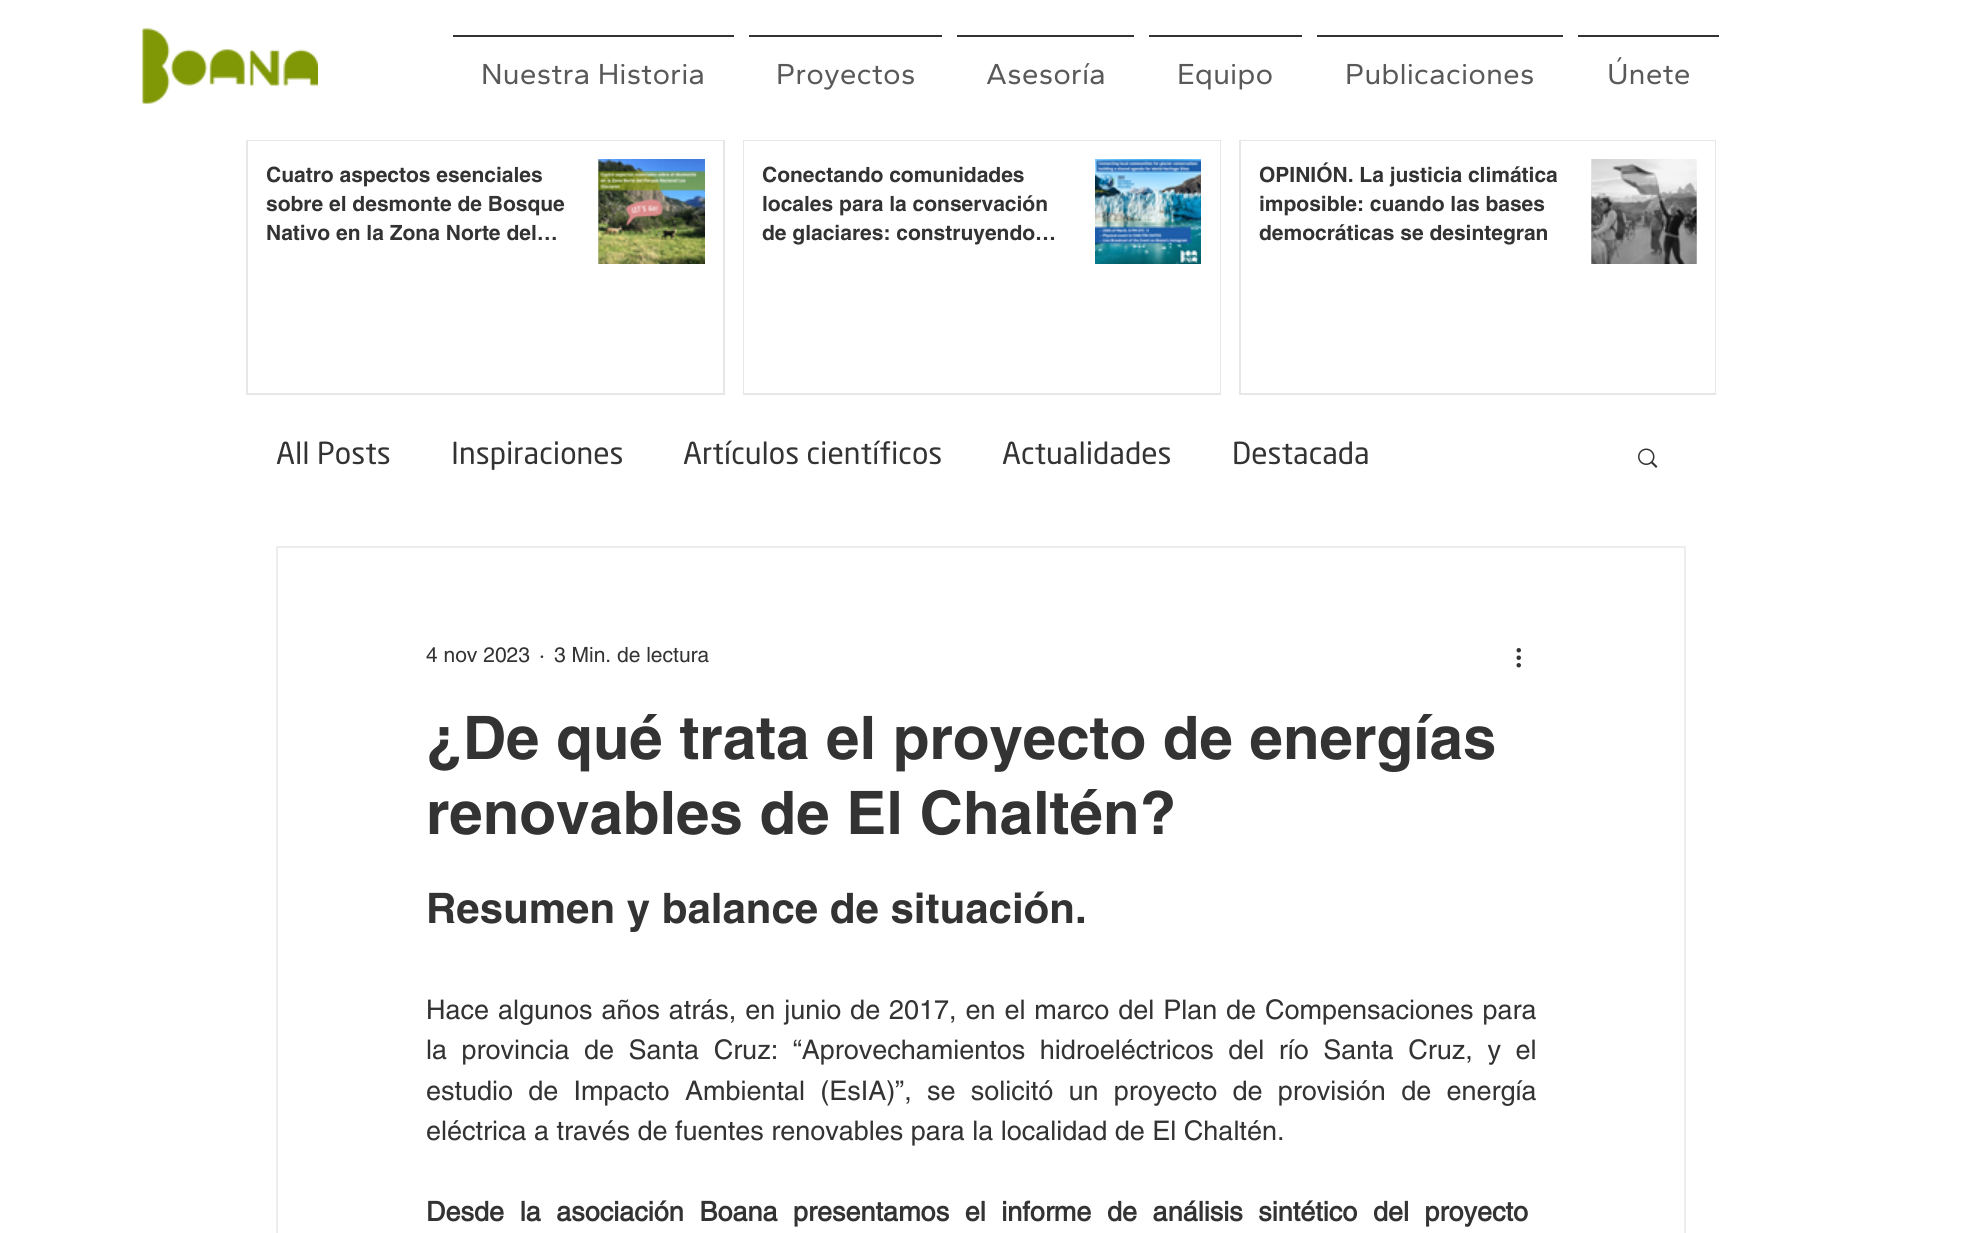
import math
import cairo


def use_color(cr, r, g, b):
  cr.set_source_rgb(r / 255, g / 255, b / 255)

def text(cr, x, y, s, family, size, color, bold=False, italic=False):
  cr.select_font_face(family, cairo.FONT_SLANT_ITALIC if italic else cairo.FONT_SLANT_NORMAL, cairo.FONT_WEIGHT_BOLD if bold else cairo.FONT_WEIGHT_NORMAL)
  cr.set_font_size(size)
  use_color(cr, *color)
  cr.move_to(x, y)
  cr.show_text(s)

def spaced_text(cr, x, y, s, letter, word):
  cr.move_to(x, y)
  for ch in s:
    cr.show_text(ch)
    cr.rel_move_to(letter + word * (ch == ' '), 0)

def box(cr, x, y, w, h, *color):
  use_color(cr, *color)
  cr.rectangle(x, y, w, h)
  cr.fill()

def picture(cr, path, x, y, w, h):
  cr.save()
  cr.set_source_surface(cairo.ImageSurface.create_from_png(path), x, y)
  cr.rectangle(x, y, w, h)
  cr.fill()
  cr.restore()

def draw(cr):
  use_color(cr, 255, 255, 255)
  cr.paint()
  picture(cr, "img_01.png", 142, 28, 176, 76)
  box(cr, 453, 35, 281, 2, 51, 51, 51)
  box(cr, 749, 35, 193, 2, 51, 51, 51)
  box(cr, 957, 35, 177, 2, 51, 51, 51)
  box(cr, 1149, 35, 153, 2, 51, 51, 51)
  box(cr, 1317, 35, 246, 2, 51, 51, 51)
  box(cr, 1578, 35, 141, 2, 51, 51, 51)
  cr.rectangle(247, 141, 477, 253)
  use_color(cr, 232, 230, 230)
  cr.stroke()
  box(cr, 248, 141, 475, 1, 255, 255, 255)
  picture(cr, "img_02.png", 598, 159, 1, 105)
  picture(cr, "img_03.png", 598, 159, 107, 105)
  cr.rectangle(744, 141, 476, 253)
  use_color(cr, 232, 230, 230)
  cr.stroke()
  box(cr, 744, 141, 476, 252, 255, 255, 255)
  picture(cr, "img_04.png", 1095, 159, 106, 105)
  cr.rectangle(1240, 141, 475, 253)
  use_color(cr, 232, 230, 230)
  cr.stroke()
  box(cr, 1241, 141, 474, 252, 255, 255, 255)
  picture(cr, "img_05.png", 1591, 159, 106, 105)
  picture(cr, "img_06.png", 1591, 159, 106, 105)
  picture(cr, "img_07.png", 1638, 448, 20, 20)
  cr.rectangle(277, 547, 1408, 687)
  use_color(cr, 238, 236, 236)
  cr.stroke()
  picture(cr, "img_08.png", 1516, 648, 5, 20)
  text(cr, 481, 84, "Nuestra Historia", "Gantari", 30, (89, 89, 89))
  text(cr, 776, 84, "Proyectos", "Gantari", 30, (89, 89, 89))
  text(cr, 986, 84, "Asesoría", "Gantari", 30, (89, 89, 89))
  text(cr, 1177, 84, "Equipo", "Gantari", 30, (89, 89, 89))
  text(cr, 1345, 84, "Publicaciones", "Gantari", 30, (89, 89, 89))
  text(cr, 1607, 84, "Únete", "Gantari", 30, (89, 89, 89))
  text(cr, 266, 182, "Cuatro aspectos esenciales", "helvetica", 21, (51, 51, 51), bold=True)
  text(cr, 266, 211, "sobre el desmonte de Bosque", "helvetica", 21, (51, 51, 51), bold=True)
  text(cr, 266, 240, "Nativo en la Zona Norte del…", "helvetica", 21, (51, 51, 51), bold=True)
  text(cr, 762, 182, "Conectando comunidades", "helvetica", 21, (51, 51, 51), bold=True)
  text(cr, 762, 211, "locales para la conservación", "helvetica", 21, (51, 51, 51), bold=True)
  text(cr, 762, 240, "de glaciares: construyendo…", "helvetica", 21, (51, 51, 51), bold=True)
  text(cr, 1259, 182, "OPINIÓN. La justicia climática", "helvetica", 21, (51, 51, 51), bold=True)
  text(cr, 1259, 211, "imposible: cuando las bases", "helvetica", 21, (51, 51, 51), bold=True)
  text(cr, 1259, 240, "democráticas se desintegran", "helvetica", 21, (51, 51, 51), bold=True)
  text(cr, 276, 464, "All Posts", "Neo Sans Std", 30, (51, 51, 51))
  text(cr, 451, 464, "Inspiraciones", "Neo Sans Std", 30, (51, 51, 51))
  text(cr, 683, 464, "Artículos científicos", "Neo Sans Std", 30, (51, 51, 51))
  text(cr, 1002, 464, "Actualidades", "Neo Sans Std", 30, (51, 51, 51))
  text(cr, 1232, 464, "Destacada", "Neo Sans Std", 30, (51, 51, 51))
  text(cr, 426, 662, "4 nov 2023", "helvetica", 21, (51, 51, 51))
  text(cr, 539, 662, "·", "helvetica", 21, (51, 51, 51))
  text(cr, 554, 662, "3 Min. de lectura", "helvetica", 21, (51, 51, 51))
  text(cr, 426, 759, "¿De qué trata el proyecto de energías", "helvetica", 60, (51, 51, 51), bold=True)
  text(cr, 426, 834, "renovables de El Chaltén?", "helvetica", 60, (51, 51, 51), bold=True)
  text(cr, 426, 923, "Resumen y balance de situación.", "helvetica", 42, (51, 51, 51), bold=True)
  cr.select_font_face("helvetica")
  cr.set_font_size(27)
  spaced_text(cr, 426, 1019, "Hace algunos años atrás, en junio de 2017, en el marco del Plan de Compensaciones para", 0, 1.4)
  spaced_text(cr, 426, 1059, "la provincia de Santa Cruz: “Aprovechamientos hidroeléctricos del río Santa Cruz, y el", 0, 7)
  spaced_text(cr, 426, 1100, "estudio de Impacto Ambiental (EsIA)”, se solicitó un proyecto de provisión de energía", 0, 7.75)
  text(cr, 426, 1140, "eléctrica a través de fuentes renovables para la localidad de El Chaltén.", "helvetica", 27, (51, 51, 51))
  cr.select_font_face("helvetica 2", cairo.FONT_SLANT_NORMAL, cairo.FONT_WEIGHT_BOLD)
  spaced_text(cr, 426, 1221, "Desde la asociación Boana presentamos el informe de análisis sintético del proyecto", 0, 8.1)


surface = cairo.ImageSurface(cairo.FORMAT_RGB24, 1961, 1233)
cr = cairo.Context(surface)
options = cairo.FontOptions()
options.set_hint_metrics(cairo.HINT_METRICS_OFF)
options.set_hint_style(cairo.HINT_STYLE_NONE)
cr.set_font_options(options)
cr.set_miter_limit(4)
draw(cr)
surface.write_to_png("out.png")
